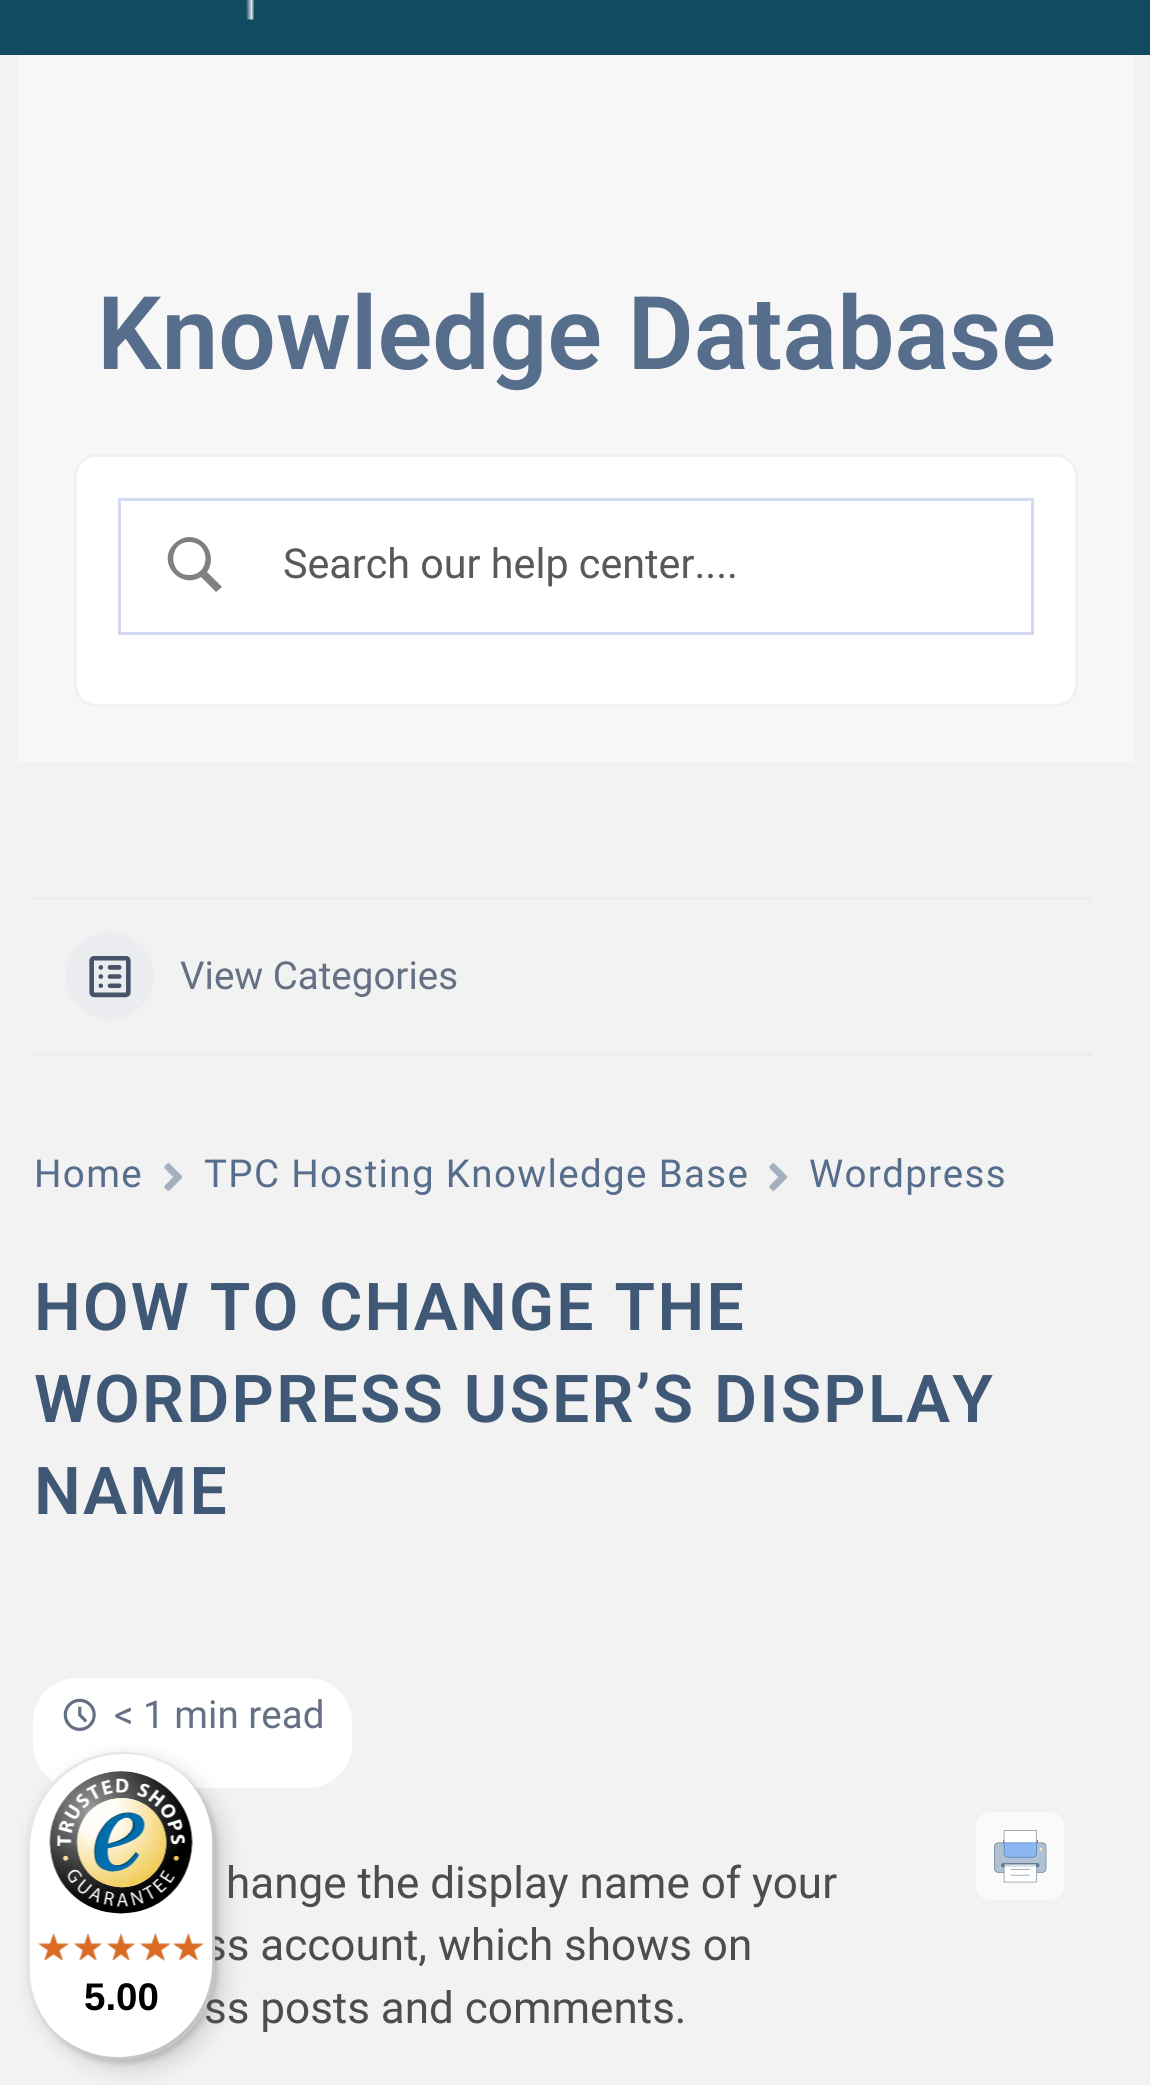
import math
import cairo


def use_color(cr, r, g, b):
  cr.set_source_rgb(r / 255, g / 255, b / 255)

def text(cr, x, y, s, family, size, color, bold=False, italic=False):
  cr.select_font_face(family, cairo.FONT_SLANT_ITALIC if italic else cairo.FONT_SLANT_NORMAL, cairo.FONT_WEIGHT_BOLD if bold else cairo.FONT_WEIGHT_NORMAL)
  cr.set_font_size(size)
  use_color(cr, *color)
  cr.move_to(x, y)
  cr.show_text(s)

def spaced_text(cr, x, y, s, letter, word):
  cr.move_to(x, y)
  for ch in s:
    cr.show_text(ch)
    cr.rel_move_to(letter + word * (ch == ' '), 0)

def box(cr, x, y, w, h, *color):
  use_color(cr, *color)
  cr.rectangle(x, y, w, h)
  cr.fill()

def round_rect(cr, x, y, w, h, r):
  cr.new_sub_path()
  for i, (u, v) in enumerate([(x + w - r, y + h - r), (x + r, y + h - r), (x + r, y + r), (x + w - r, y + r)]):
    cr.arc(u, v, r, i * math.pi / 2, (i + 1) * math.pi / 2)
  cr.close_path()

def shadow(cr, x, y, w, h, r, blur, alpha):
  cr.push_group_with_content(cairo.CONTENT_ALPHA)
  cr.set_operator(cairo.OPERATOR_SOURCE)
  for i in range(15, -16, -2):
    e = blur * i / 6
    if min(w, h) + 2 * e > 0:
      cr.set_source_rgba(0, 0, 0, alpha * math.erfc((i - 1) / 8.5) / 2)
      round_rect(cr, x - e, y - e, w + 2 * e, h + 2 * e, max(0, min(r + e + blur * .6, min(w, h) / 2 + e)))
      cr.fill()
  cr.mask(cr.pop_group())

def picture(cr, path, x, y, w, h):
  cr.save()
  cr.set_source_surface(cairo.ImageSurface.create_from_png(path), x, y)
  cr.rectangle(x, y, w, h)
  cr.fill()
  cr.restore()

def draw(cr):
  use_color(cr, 242, 242, 242)
  cr.paint()
  box(cr, 0, 0, 1150, 55, 17, 75, 95)
  picture(cr, "img_01.png", 246, 0, 8, 20)
  box(cr, 19, 55, 1114, 707, 247, 247, 247)
  use_color(cr, 255, 255, 255)
  round_rect(cr, 75.5, 455.5, 1001, 250, 20.5)
  cr.fill_preserve()
  use_color(cr, 241, 241, 241)
  cr.set_line_width(3)
  cr.stroke()
  cr.rectangle(119.5, 499.5, 913, 134)
  use_color(cr, 211, 217, 239)
  cr.stroke()
  use_color(cr, 128, 128, 128)
  cr.new_path()
  cr.move_to(189, 537)
  cr.curve_to(184, 537, 178, 540, 174, 544)
  cr.curve_to(156, 562, 180, 590, 201, 577)
  cr.line_to(216, 592)
  cr.line_to(222, 587)
  cr.line_to(207, 572)
  cr.curve_to(217, 558, 207, 537, 189, 537)
  cr.close_path()
  cr.move_to(189, 542)
  cr.curve_to(211, 542, 211, 575, 189, 575)
  cr.curve_to(168, 575, 168, 542, 189, 542)
  cr.close_path()
  cr.fill()
  box(cr, 33, 897, 1059, 3, 234, 236, 240)
  box(cr, 33, 1053, 1059, 3, 234, 236, 240)
  cr.arc(110, 976, 44, 0, 2 * math.pi)
  cr.fill()
  picture(cr, "img_02.png", 89, 956, 42, 42)
  picture(cr, "img_03.png", 164, 1163, 18, 28)
  picture(cr, "img_03.png", 769, 1163, 18, 28)
  use_color(cr, 255, 255, 255)
  round_rect(cr, 33, 1678, 319, 110, 44)
  cr.fill()
  picture(cr, "img_04.png", 63, 1698, 33, 33)
  use_color(cr, 250, 250, 250)
  round_rect(cr, 976, 1812, 88, 88, 14)
  cr.fill()
  picture(cr, "img_05.png", 994, 1830, 53, 53)
  use_color(cr, 0, 0, 0)
  shadow(cr, 36, 1760, 187, 308, 93.5, 11, 0.15)
  shadow(cr, 30, 1755, 187, 308, 93.5, 3, 0.15)
  text(cr, 97, 369, "Knowledge Database", "Roboto SemiBold", 101.75, (86, 110, 139))
  text(cr, 283, 578, "Search our help center....", "Roboto", 41.25, (89, 89, 89))
  text(cr, 180, 989, "View Categories", "Roboto", 38.5, (102, 112, 133))
  use_color(cr, 86, 110, 139)
  spaced_text(cr, 34, 1187, "Home", 1.35, 0)
  spaced_text(cr, 204, 1187, "TPC Hosting Knowledge Base", 1.35, 0)
  spaced_text(cr, 809, 1187, "Wordpress", 1.35, 0)
  cr.select_font_face("Roboto SemiBold")
  cr.set_font_size(66)
  use_color(cr, 63, 88, 118)
  spaced_text(cr, 34, 1330, "HOW TO CHANGE THE", 2.3, 0)
  spaced_text(cr, 34, 1422, "WORDPRESS USER’S DISPLAY", 2.3, 0)
  spaced_text(cr, 34, 1514, "NAME", 2.3, 0)
  text(cr, 114, 1728, "< 1 min read", "Roboto", 38.5, (102, 112, 133))
  text(cr, 226, 1898, "hange the display name of your", "Roboto", 44, (77, 77, 77))
  text(cr, 204, 1960, "ss account, which shows on", "Roboto", 44, (77, 77, 77))
  text(cr, 204, 2023, "ss posts and comments.", "Roboto", 44, (77, 77, 77))
  use_color(cr, 255, 255, 255)
  round_rect(cr, 28, 1752, 187, 308, 93.5)
  cr.fill()
  cr.set_source_rgba(0, 0, 0, 0.1)
  cr.new_path()
  cr.move_to(124, 1754)
  cr.curve_to(150, 1754, 173, 1765, 190, 1782)
  cr.curve_to(173, 1764, 149, 1752, 122, 1752)
  cr.curve_to(70, 1752, 28, 1794, 28, 1846)
  cr.line_to(28, 1966)
  cr.curve_to(28, 1990, 37, 2012, 51, 2028)
  cr.curve_to(38, 2012, 30, 1992, 30, 1969)
  cr.line_to(30, 1848)
  cr.curve_to(30, 1796, 72, 1754, 124, 1754)
  cr.close_path()
  cr.fill()
  cr.set_source_rgba(0, 0, 0, 0.2)
  cr.new_path()
  cr.move_to(54, 2031)
  cr.curve_to(71, 2049, 95, 2060, 122, 2060)
  cr.curve_to(173, 2060, 215, 2018, 215, 1966)
  cr.line_to(215, 1846)
  cr.curve_to(215, 1818, 203, 1794, 185, 1777)
  cr.curve_to(202, 1794, 212, 1817, 212, 1842)
  cr.line_to(212, 1964)
  cr.curve_to(212, 2015, 170, 2057, 118, 2057)
  cr.curve_to(93, 2057, 71, 2047, 54, 2031)
  cr.close_path()
  cr.fill()
  cr.set_source_rgba(0.196, 0.196, 0.196, 0.2)
  cr.new_path()
  cr.move_to(55, 2032)
  cr.curve_to(72, 2049, 95, 2060, 122, 2060)
  cr.curve_to(173, 2060, 215, 2018, 215, 1966)
  cr.line_to(215, 1846)
  cr.curve_to(215, 1817, 202, 1792, 183, 1775)
  cr.curve_to(201, 1792, 213, 1817, 213, 1844)
  cr.line_to(213, 1965)
  cr.curve_to(213, 2016, 171, 2058, 119, 2058)
  cr.curve_to(94, 2058, 71, 2048, 55, 2032)
  cr.close_path()
  cr.fill()
  cr.set_source_rgba(1, 1, 1, 0.3)
  cr.new_path()
  cr.move_to(58, 2035)
  cr.curve_to(75, 2051, 97, 2060, 122, 2060)
  cr.curve_to(173, 2060, 215, 2018, 215, 1966)
  cr.line_to(215, 1846)
  cr.curve_to(215, 1818, 203, 1794, 185, 1777)
  cr.curve_to(202, 1794, 213, 1818, 213, 1844)
  cr.line_to(213, 1965)
  cr.curve_to(213, 2017, 171, 2058, 120, 2058)
  cr.curve_to(96, 2058, 75, 2050, 58, 2035)
  cr.close_path()
  cr.fill()
  picture(cr, "img_06.png", 49, 1771, 144, 143)
  picture(cr, "img_07.png", 38, 1934, 31, 26)
  picture(cr, "img_08.png", 74, 1933, 28, 28)
  picture(cr, "img_09.png", 107, 1934, 28, 26)
  picture(cr, "img_10.png", 140, 1933, 31, 28)
  picture(cr, "img_11.png", 173, 1934, 31, 26)
  picture(cr, "img_12.png", 38, 1933, 31, 28)
  picture(cr, "img_13.png", 74, 1933, 28, 28)
  picture(cr, "img_14.png", 107, 1933, 28, 28)
  picture(cr, "img_15.png", 140, 1933, 31, 28)
  picture(cr, "img_16.png", 173, 1933, 31, 28)
  text(cr, 84, 2010, "5.00", "Liberation Sans", 38.5, (0, 0, 0), bold=True)


surface = cairo.ImageSurface(cairo.FORMAT_RGB24, 1150, 2085)
cr = cairo.Context(surface)
options = cairo.FontOptions()
options.set_hint_metrics(cairo.HINT_METRICS_OFF)
options.set_hint_style(cairo.HINT_STYLE_NONE)
cr.set_font_options(options)
cr.set_miter_limit(4)
draw(cr)
surface.write_to_png("out.png")
